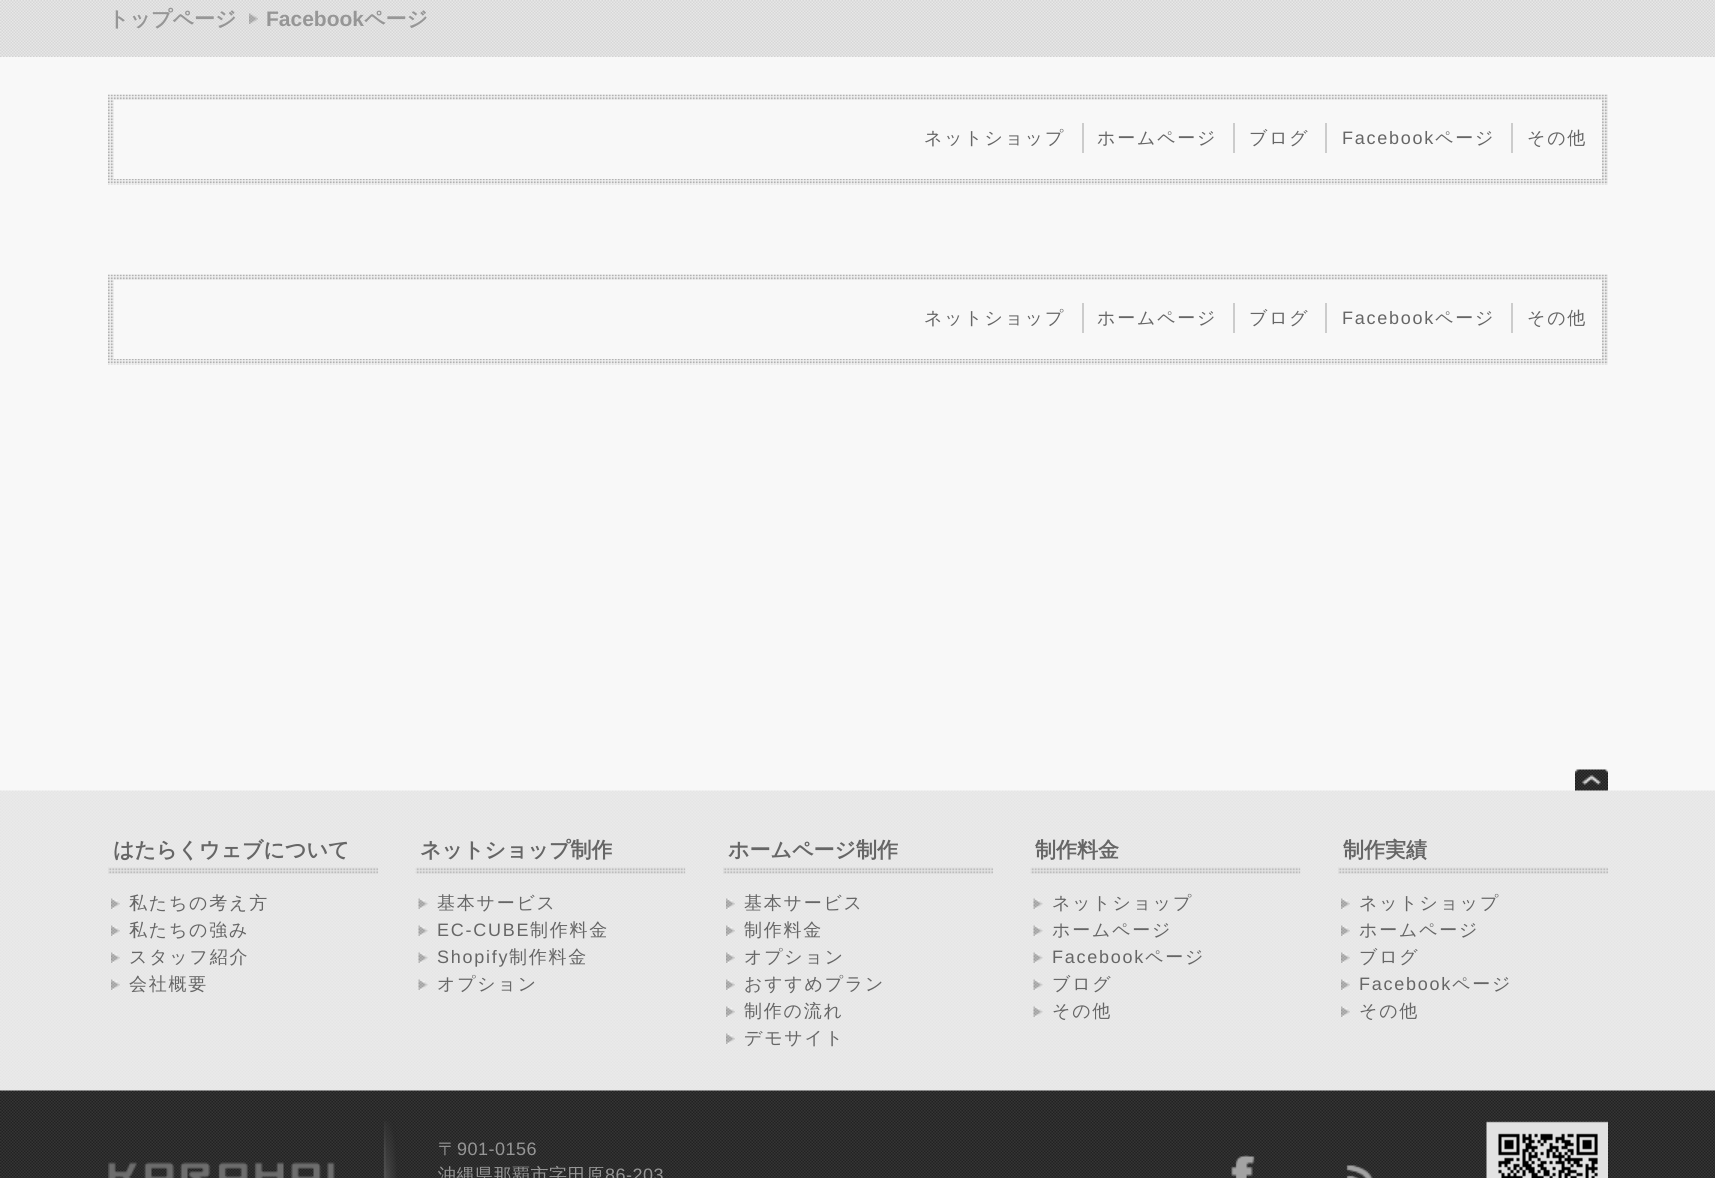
import math
import cairo


def use_color(cr, r, g, b):
  cr.set_source_rgb(r / 255, g / 255, b / 255)

def text(cr, x, y, s, family, size, color, bold=False, italic=False):
  cr.select_font_face(family, cairo.FONT_SLANT_ITALIC if italic else cairo.FONT_SLANT_NORMAL, cairo.FONT_WEIGHT_BOLD if bold else cairo.FONT_WEIGHT_NORMAL)
  cr.set_font_size(size)
  use_color(cr, *color)
  cr.move_to(x, y)
  cr.show_text(s)

def spaced_text(cr, x, y, s, letter, word):
  cr.move_to(x, y)
  for ch in s:
    cr.show_text(ch)
    cr.rel_move_to(letter + word * (ch == ' '), 0)

def box(cr, x, y, w, h, *color):
  use_color(cr, *color)
  cr.rectangle(x, y, w, h)
  cr.fill()

def picture(cr, path, x, y, w, h):
  cr.save()
  cr.set_source_surface(cairo.ImageSurface.create_from_png(path), x, y)
  cr.rectangle(x, y, w, h)
  cr.fill()
  cr.restore()

def draw(cr):
  use_color(cr, 248, 248, 248)
  cr.paint()
  picture(cr, "img_01.png", 0, 0, 1715, 57)
  picture(cr, "img_02.png", 249, 13, 9, 11)
  picture(cr, "img_03.png", 108, 94, 1500, 91)
  box(cr, 114, 100, 1488, 79, 248, 248, 248)
  box(cr, 1082, 123, 2, 30, 204, 204, 204)
  box(cr, 1233, 123, 2, 30, 204, 204, 204)
  box(cr, 1325, 123, 2, 30, 204, 204, 204)
  box(cr, 1511, 123, 2, 30, 204, 204, 204)
  picture(cr, "img_03.png", 108, 274, 1500, 91)
  box(cr, 114, 280, 1488, 79, 248, 248, 248)
  box(cr, 1082, 303, 2, 30, 204, 204, 204)
  box(cr, 1233, 303, 2, 30, 204, 204, 204)
  box(cr, 1325, 303, 2, 30, 204, 204, 204)
  box(cr, 1511, 303, 2, 30, 204, 204, 204)
  picture(cr, "img_04.png", 0, 790, 1715, 388)
  picture(cr, "img_05.png", 1575, 769, 33, 22)
  picture(cr, "img_06.png", 108, 867, 270, 7)
  picture(cr, "img_07.png", 111, 898, 9, 11)
  picture(cr, "img_08.png", 111, 925, 9, 11)
  picture(cr, "img_09.png", 111, 952, 9, 11)
  picture(cr, "img_10.png", 111, 979, 9, 11)
  picture(cr, "img_11.png", 415, 867, 271, 7)
  picture(cr, "img_12.png", 418, 898, 10, 11)
  picture(cr, "img_13.png", 418, 925, 10, 11)
  picture(cr, "img_14.png", 418, 952, 10, 11)
  picture(cr, "img_15.png", 418, 979, 10, 11)
  picture(cr, "img_06.png", 723, 867, 270, 7)
  picture(cr, "img_16.png", 726, 898, 9, 11)
  picture(cr, "img_17.png", 726, 925, 9, 11)
  picture(cr, "img_18.png", 726, 952, 9, 11)
  picture(cr, "img_19.png", 726, 979, 9, 11)
  picture(cr, "img_16.png", 726, 1006, 9, 11)
  picture(cr, "img_16.png", 726, 1033, 9, 11)
  picture(cr, "img_20.png", 1030, 867, 271, 7)
  picture(cr, "img_21.png", 1033, 898, 10, 11)
  picture(cr, "img_22.png", 1033, 925, 10, 11)
  picture(cr, "img_23.png", 1033, 952, 10, 11)
  picture(cr, "img_24.png", 1033, 979, 10, 11)
  picture(cr, "img_21.png", 1033, 1006, 10, 11)
  picture(cr, "img_06.png", 1338, 867, 270, 7)
  picture(cr, "img_25.png", 1341, 898, 9, 11)
  picture(cr, "img_26.png", 1341, 925, 9, 11)
  picture(cr, "img_27.png", 1341, 952, 9, 11)
  picture(cr, "img_28.png", 1341, 979, 9, 11)
  picture(cr, "img_25.png", 1341, 1006, 9, 11)
  picture(cr, "img_29.png", 108, 1121, 1500, 57)
  picture(cr, "img_30.png", 1231, 1155, 24, 23)
  picture(cr, "img_31.png", 1346, 1165, 27, 13)
  text(cr, 108, 26, "トップページ", "WenQuanYi Zen Hei", 21, (150, 150, 150), bold=True)
  text(cr, 266, 26, "Facebook", "Liberation Sans", 21, (150, 150, 150), bold=True)
  text(cr, 364, 26, "ページ", "WenQuanYi Zen Hei", 21, (150, 150, 150), bold=True)
  cr.select_font_face("WenQuanYi Zen Hei Medium")
  cr.set_font_size(18)
  use_color(cr, 102, 102, 102)
  spaced_text(cr, 924, 144, "ネットショップ", 1.75, 0)
  spaced_text(cr, 1097, 144, "ホームページ", 1.75, 0)
  spaced_text(cr, 1249, 144, "ブログ", 1.75, 0)
  cr.select_font_face("Liberation Sans")
  spaced_text(cr, 1342, 144, "Facebook", 1.75, 0)
  cr.select_font_face("WenQuanYi Zen Hei Medium")
  spaced_text(cr, 1435, 144, "ページ", 1.75, 0)
  spaced_text(cr, 1527, 144, "その他", 1.75, 0)
  spaced_text(cr, 924, 324, "ネットショップ", 1.75, 0)
  spaced_text(cr, 1097, 324, "ホームページ", 1.75, 0)
  spaced_text(cr, 1249, 324, "ブログ", 1.75, 0)
  cr.select_font_face("Liberation Sans")
  spaced_text(cr, 1342, 324, "Facebook", 1.75, 0)
  cr.select_font_face("WenQuanYi Zen Hei Medium")
  spaced_text(cr, 1435, 324, "ページ", 1.75, 0)
  spaced_text(cr, 1527, 324, "その他", 1.75, 0)
  text(cr, 113, 857, "はたらくウェブについて", "WenQuanYi Zen Hei", 21, (102, 102, 102), bold=True)
  cr.select_font_face("WenQuanYi Zen Hei Medium")
  cr.set_font_size(18)
  spaced_text(cr, 129, 909, "私たちの考え方", 1.75, 0)
  spaced_text(cr, 129, 936, "私たちの強み", 1.75, 0)
  spaced_text(cr, 129, 963, "スタッフ紹介", 1.75, 0)
  spaced_text(cr, 129, 990, "会社概要", 1.75, 0)
  text(cr, 420, 857, "ネットショップ制作", "WenQuanYi Zen Hei", 21, (102, 102, 102), bold=True)
  cr.select_font_face("WenQuanYi Zen Hei Medium")
  cr.set_font_size(18)
  spaced_text(cr, 437, 909, "基本サービス", 1.75, 0)
  cr.select_font_face("Liberation Sans")
  spaced_text(cr, 437, 936, "EC-CUBE", 1.75, 0)
  cr.select_font_face("WenQuanYi Zen Hei Medium")
  spaced_text(cr, 530, 936, "制作料金", 1.75, 0)
  cr.select_font_face("Liberation Sans")
  spaced_text(cr, 437, 963, "Shopify", 1.75, 0)
  cr.select_font_face("WenQuanYi Zen Hei Medium")
  spaced_text(cr, 509, 963, "制作料金", 1.75, 0)
  spaced_text(cr, 437, 990, "オプション", 1.75, 0)
  text(cr, 728, 857, "ホームページ制作", "WenQuanYi Zen Hei", 21, (102, 102, 102), bold=True)
  cr.select_font_face("WenQuanYi Zen Hei Medium")
  cr.set_font_size(18)
  spaced_text(cr, 744, 909, "基本サービス", 1.75, 0)
  spaced_text(cr, 744, 936, "制作料金", 1.75, 0)
  spaced_text(cr, 744, 963, "オプション", 1.75, 0)
  spaced_text(cr, 744, 990, "おすすめプラン", 1.75, 0)
  spaced_text(cr, 744, 1017, "制作の流れ", 1.75, 0)
  spaced_text(cr, 744, 1044, "デモサイト", 1.75, 0)
  text(cr, 1035, 857, "制作料金", "WenQuanYi Zen Hei", 21, (102, 102, 102), bold=True)
  cr.select_font_face("WenQuanYi Zen Hei Medium")
  cr.set_font_size(18)
  spaced_text(cr, 1052, 909, "ネットショップ", 1.75, 0)
  spaced_text(cr, 1052, 936, "ホームページ", 1.75, 0)
  cr.select_font_face("Liberation Sans")
  spaced_text(cr, 1052, 963, "Facebook", 1.75, 0)
  cr.select_font_face("WenQuanYi Zen Hei Medium")
  spaced_text(cr, 1145, 963, "ページ", 1.75, 0)
  spaced_text(cr, 1052, 990, "ブログ", 1.75, 0)
  spaced_text(cr, 1052, 1017, "その他", 1.75, 0)
  text(cr, 1343, 857, "制作実績", "WenQuanYi Zen Hei", 21, (102, 102, 102), bold=True)
  cr.select_font_face("WenQuanYi Zen Hei Medium")
  cr.set_font_size(18)
  spaced_text(cr, 1359, 909, "ネットショップ", 1.75, 0)
  spaced_text(cr, 1359, 936, "ホームページ", 1.75, 0)
  spaced_text(cr, 1359, 963, "ブログ", 1.75, 0)
  cr.select_font_face("Liberation Sans")
  spaced_text(cr, 1359, 990, "Facebook", 1.75, 0)
  cr.select_font_face("WenQuanYi Zen Hei Medium")
  spaced_text(cr, 1452, 990, "ページ", 1.75, 0)
  spaced_text(cr, 1359, 1017, "その他", 1.75, 0)
  use_color(cr, 150, 150, 150)
  spaced_text(cr, 438, 1155, "〒", 0.5, 0)
  cr.select_font_face("Liberation Sans")
  spaced_text(cr, 457, 1155, "901-0156", 0.5, 0)
  cr.select_font_face("WenQuanYi Zen Hei Medium")
  spaced_text(cr, 438, 1181, "沖縄県那覇市字田原", 0.5, 0)
  cr.select_font_face("Liberation Sans")
  spaced_text(cr, 605, 1181, "86-203", 0.5, 0)


surface = cairo.ImageSurface(cairo.FORMAT_RGB24, 1715, 1178)
cr = cairo.Context(surface)
options = cairo.FontOptions()
options.set_hint_metrics(cairo.HINT_METRICS_OFF)
options.set_hint_style(cairo.HINT_STYLE_NONE)
cr.set_font_options(options)
cr.set_miter_limit(4)
draw(cr)
surface.write_to_png("out.png")
